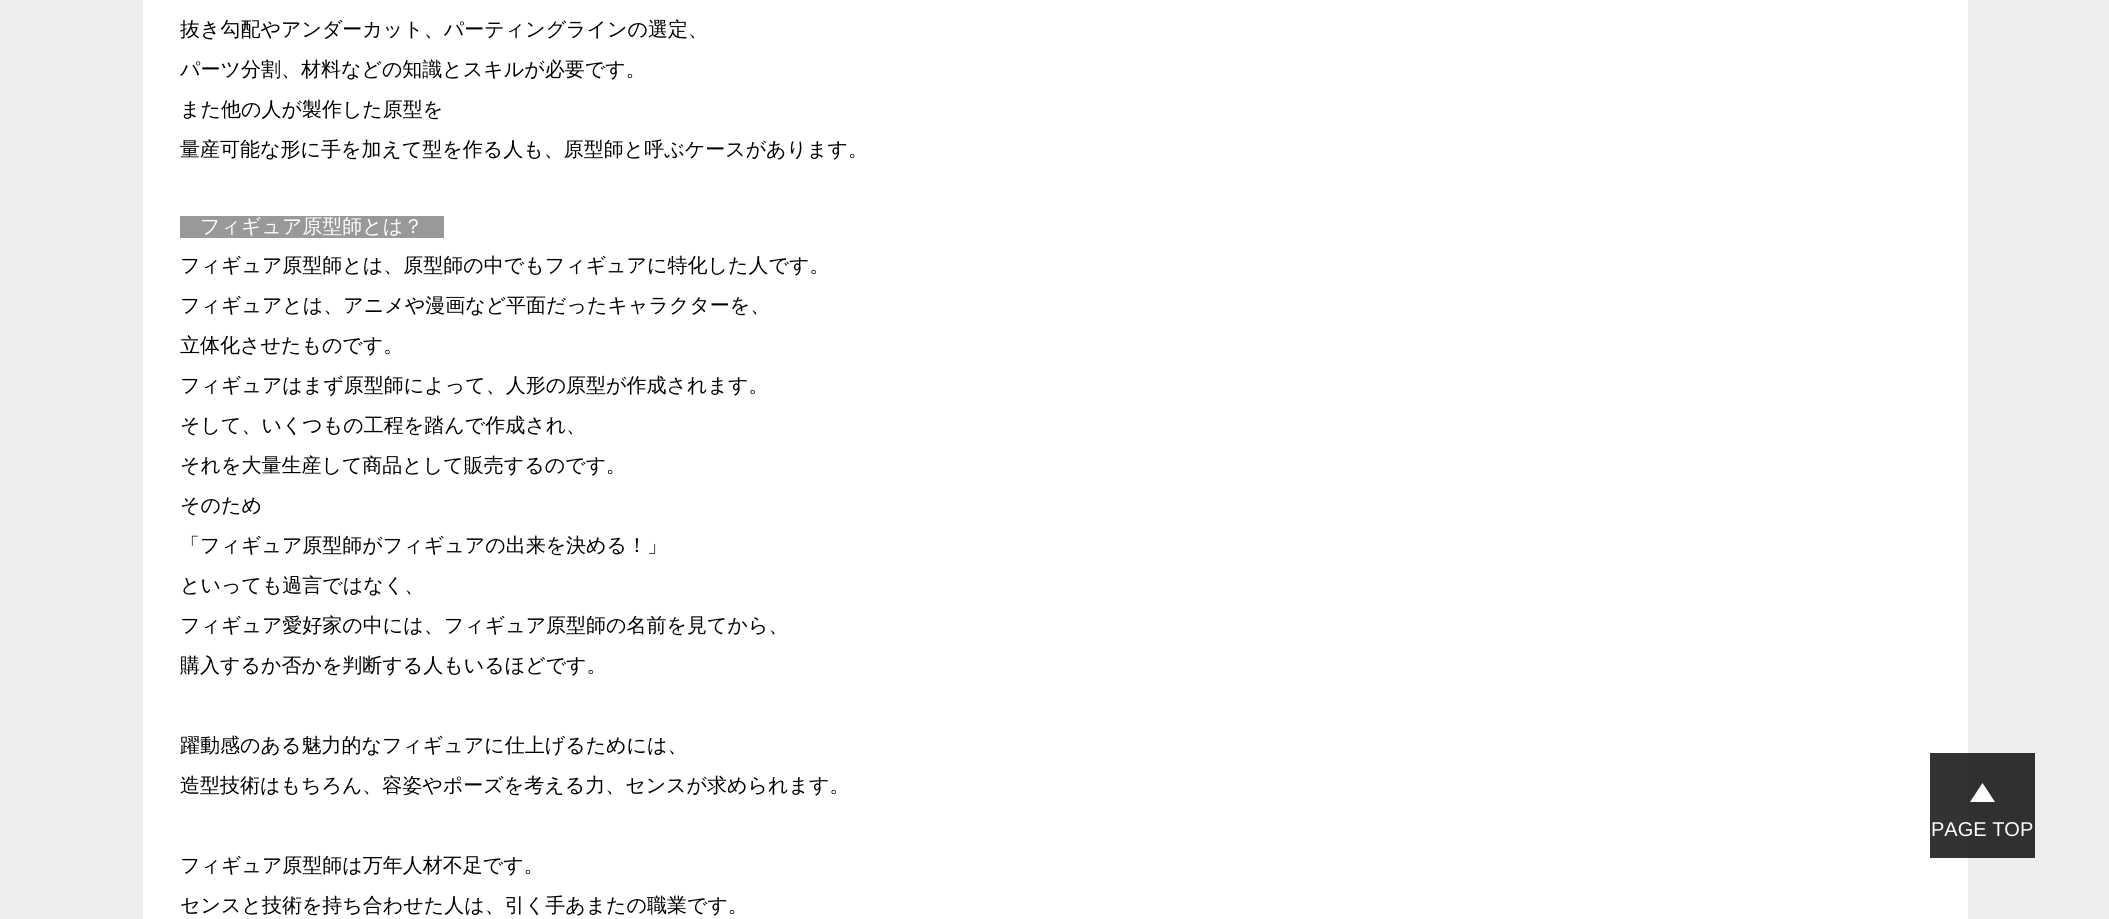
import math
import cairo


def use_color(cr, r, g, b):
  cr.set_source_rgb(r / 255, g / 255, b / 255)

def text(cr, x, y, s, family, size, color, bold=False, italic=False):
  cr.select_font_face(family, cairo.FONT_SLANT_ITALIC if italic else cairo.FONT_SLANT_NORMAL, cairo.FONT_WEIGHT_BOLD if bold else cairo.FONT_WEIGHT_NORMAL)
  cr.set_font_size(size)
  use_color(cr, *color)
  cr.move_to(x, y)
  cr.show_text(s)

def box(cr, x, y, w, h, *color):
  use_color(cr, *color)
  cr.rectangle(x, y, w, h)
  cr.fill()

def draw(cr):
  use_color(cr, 238, 238, 238)
  cr.paint()
  box(cr, 1968, 753, 67, 105, 48, 48, 48)
  box(cr, 143, 0, 1825, 919, 255, 255, 255)
  box(cr, 1930, 753, 38, 105, 51, 51, 51)
  box(cr, 180, 216, 264, 22, 153, 153, 153)
  use_color(cr, 255, 255, 255)
  cr.new_path()
  cr.move_to(1995, 802)
  cr.line_to(1970, 802)
  cr.line_to(1982.5, 783)
  cr.close_path()
  cr.fill()
  text(cr, 180, 36, "抜き勾配やアンダーカット、パーティングラインの選定、", "WenQuanYi Zen Hei Medium", 20, (0, 0, 0))
  text(cr, 180, 76, "パーツ分割、材料などの知識とスキルが必要です。", "WenQuanYi Zen Hei Medium", 20, (0, 0, 0))
  text(cr, 180, 116, "また他の人が製作した原型を", "WenQuanYi Zen Hei Medium", 20, (0, 0, 0))
  text(cr, 180, 156, "量産可能な形に手を加えて型を作る人も、原型師と呼ぶケースがあります。", "WenQuanYi Zen Hei Medium", 20, (0, 0, 0))
  text(cr, 200, 233, "フィギュア原型師とは？", "WenQuanYi Zen Hei Medium", 20, (255, 255, 255))
  text(cr, 180, 272, "フィギュア原型師とは、原型師の中でもフィギュアに特化した人です。", "WenQuanYi Zen Hei Medium", 20, (0, 0, 0))
  text(cr, 180, 312, "フィギュアとは、アニメや漫画など平面だったキャラクターを、", "WenQuanYi Zen Hei Medium", 20, (0, 0, 0))
  text(cr, 180, 352, "立体化させたものです。", "WenQuanYi Zen Hei Medium", 20, (0, 0, 0))
  text(cr, 180, 392, "フィギュアはまず原型師によって、人形の原型が作成されます。", "WenQuanYi Zen Hei Medium", 20, (0, 0, 0))
  text(cr, 180, 432, "そして、いくつもの工程を踏んで作成され、", "WenQuanYi Zen Hei Medium", 20, (0, 0, 0))
  text(cr, 180, 472, "それを大量生産して商品として販売するのです。", "WenQuanYi Zen Hei Medium", 20, (0, 0, 0))
  text(cr, 180, 512, "そのため", "WenQuanYi Zen Hei Medium", 20, (0, 0, 0))
  text(cr, 180, 552, "「フィギュア原型師がフィギュアの出来を決める！」", "WenQuanYi Zen Hei Medium", 20, (0, 0, 0))
  text(cr, 180, 592, "といっても過言ではなく、", "WenQuanYi Zen Hei Medium", 20, (0, 0, 0))
  text(cr, 180, 632, "フィギュア愛好家の中には、フィギュア原型師の名前を見てから、", "WenQuanYi Zen Hei Medium", 20, (0, 0, 0))
  text(cr, 180, 672, "購入するか否かを判断する人もいるほどです。", "WenQuanYi Zen Hei Medium", 20, (0, 0, 0))
  text(cr, 180, 752, "躍動感のある魅力的なフィギュアに仕上げるためには、", "WenQuanYi Zen Hei Medium", 20, (0, 0, 0))
  text(cr, 180, 792, "造型技術はもちろん、容姿やポーズを考える力、センスが求められます。", "WenQuanYi Zen Hei Medium", 20, (0, 0, 0))
  text(cr, 180, 872, "フィギュア原型師は万年人材不足です。", "WenQuanYi Zen Hei Medium", 20, (0, 0, 0))
  text(cr, 180, 912, "センスと技術を持ち合わせた人は、引く手あまたの職業です。", "WenQuanYi Zen Hei Medium", 20, (0, 0, 0))
  text(cr, 1931, 836, "PAGE TOP", "Liberation Sans", 20, (255, 255, 255))


surface = cairo.ImageSurface(cairo.FORMAT_RGB24, 2109, 919)
cr = cairo.Context(surface)
options = cairo.FontOptions()
options.set_hint_metrics(cairo.HINT_METRICS_OFF)
options.set_hint_style(cairo.HINT_STYLE_NONE)
cr.set_font_options(options)
cr.set_miter_limit(4)
draw(cr)
surface.write_to_png("out.png")
